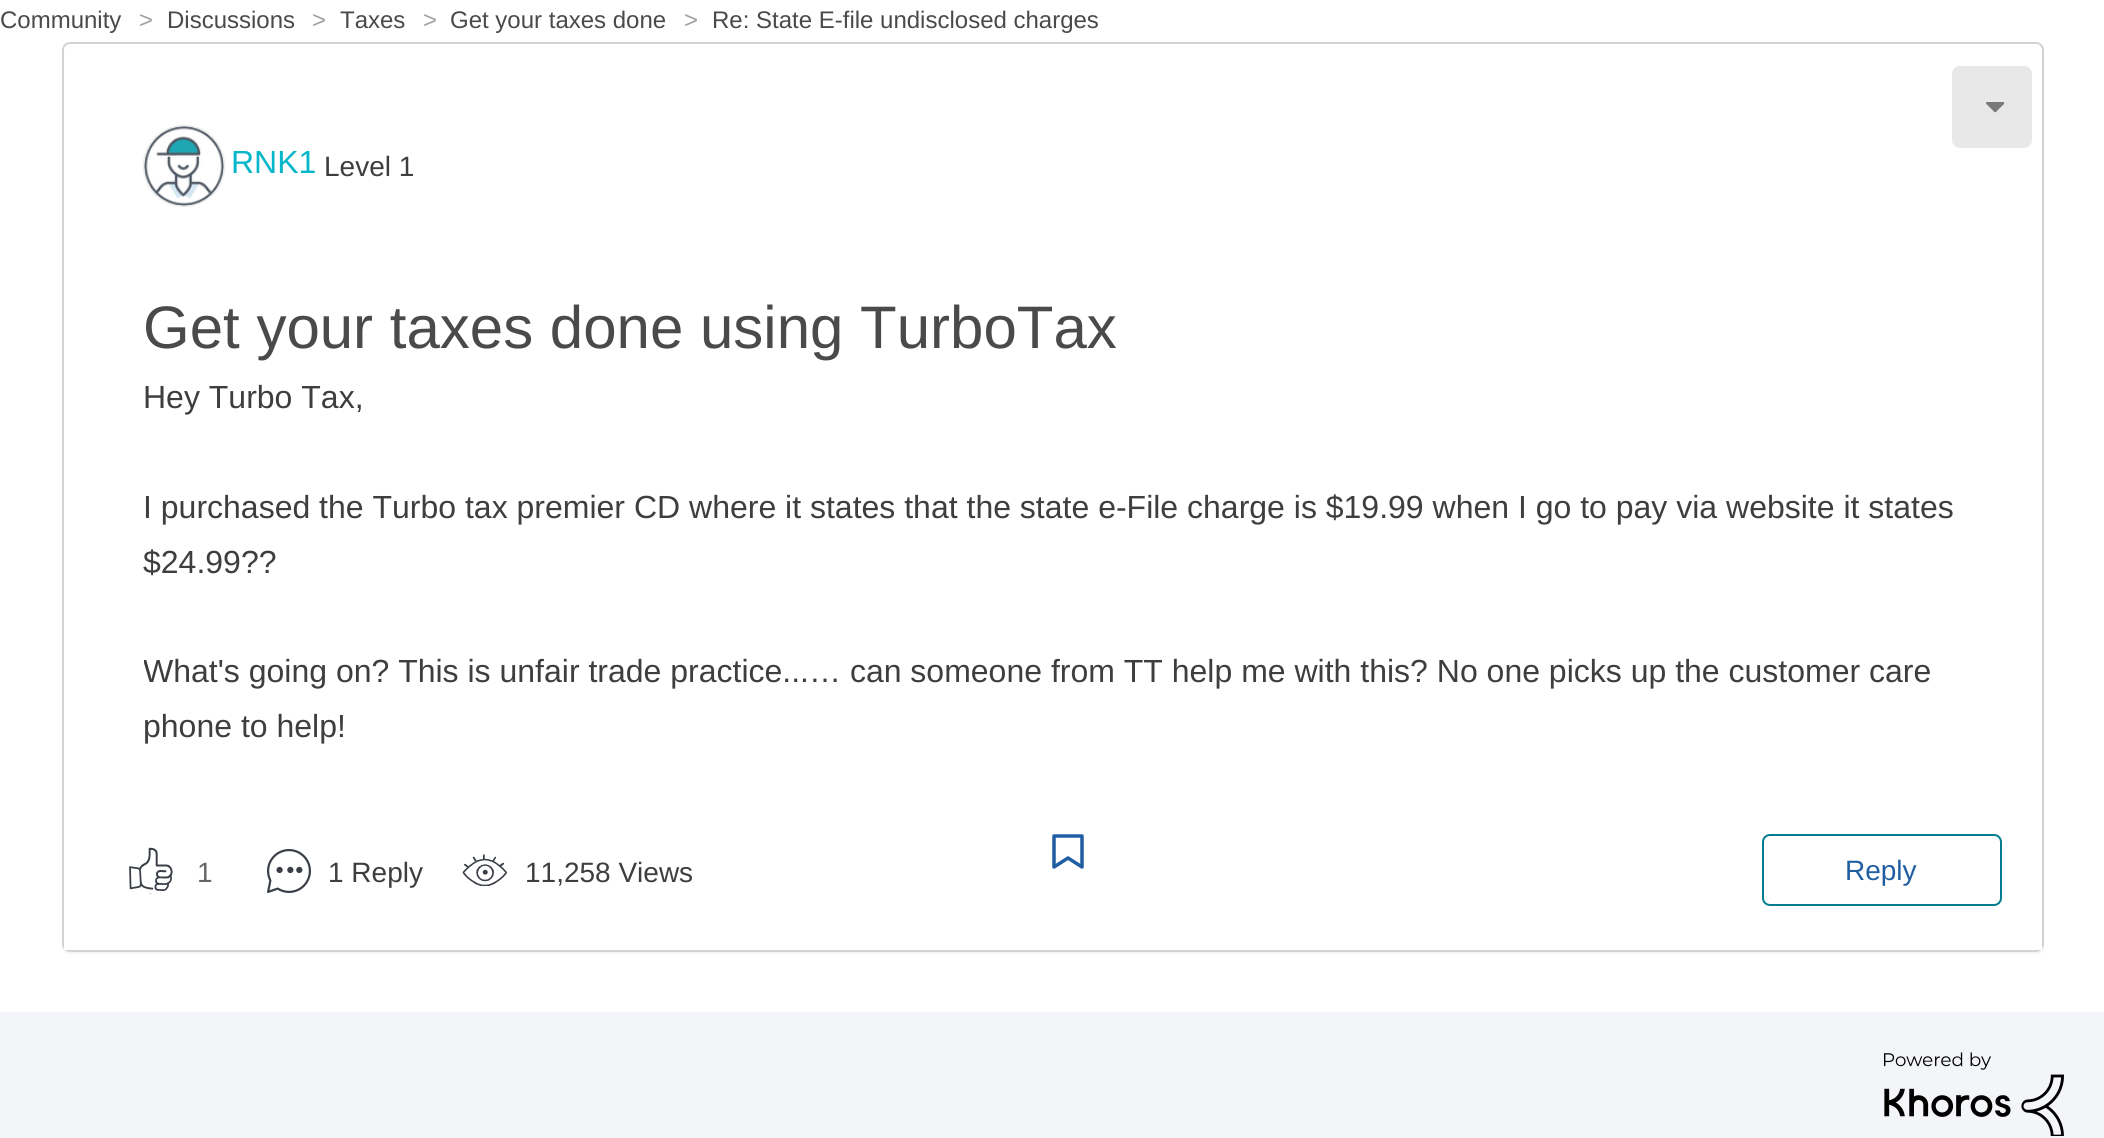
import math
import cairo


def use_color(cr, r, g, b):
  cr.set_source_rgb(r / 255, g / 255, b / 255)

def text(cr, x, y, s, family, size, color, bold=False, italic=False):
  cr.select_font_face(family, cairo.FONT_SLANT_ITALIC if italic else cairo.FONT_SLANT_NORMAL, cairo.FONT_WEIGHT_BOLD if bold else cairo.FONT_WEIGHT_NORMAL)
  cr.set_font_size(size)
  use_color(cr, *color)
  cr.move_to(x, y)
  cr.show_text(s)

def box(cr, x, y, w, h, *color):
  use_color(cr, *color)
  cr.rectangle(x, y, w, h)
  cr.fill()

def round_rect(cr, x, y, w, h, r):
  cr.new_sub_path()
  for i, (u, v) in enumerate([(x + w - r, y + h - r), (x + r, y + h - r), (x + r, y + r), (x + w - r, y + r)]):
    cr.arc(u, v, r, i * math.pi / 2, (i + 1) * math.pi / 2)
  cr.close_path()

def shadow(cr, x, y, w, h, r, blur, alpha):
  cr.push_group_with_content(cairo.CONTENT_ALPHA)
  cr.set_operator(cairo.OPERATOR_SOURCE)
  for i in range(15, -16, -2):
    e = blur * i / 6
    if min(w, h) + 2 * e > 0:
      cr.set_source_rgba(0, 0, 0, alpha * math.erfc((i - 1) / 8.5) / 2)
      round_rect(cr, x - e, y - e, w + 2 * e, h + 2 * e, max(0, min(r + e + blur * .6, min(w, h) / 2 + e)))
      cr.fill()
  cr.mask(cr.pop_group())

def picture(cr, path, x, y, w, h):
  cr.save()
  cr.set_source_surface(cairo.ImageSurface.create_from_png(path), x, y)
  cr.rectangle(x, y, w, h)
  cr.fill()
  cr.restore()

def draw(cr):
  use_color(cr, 255, 255, 255)
  cr.paint()
  cr.save()
  cr.set_fill_rule(cairo.FILL_RULE_EVEN_ODD)
  cr.new_path()
  cr.move_to(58, 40)
  cr.line_to(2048, 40)
  cr.line_to(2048, 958)
  cr.line_to(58, 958)
  cr.close_path()
  cr.move_to(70, 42)
  cr.line_to(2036, 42)
  cr.curve_to(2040.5, 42, 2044, 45.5, 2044, 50)
  cr.line_to(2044, 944)
  cr.curve_to(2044, 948.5, 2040.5, 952, 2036, 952)
  cr.line_to(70, 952)
  cr.curve_to(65.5, 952, 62, 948.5, 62, 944)
  cr.line_to(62, 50)
  cr.curve_to(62, 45.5, 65.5, 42, 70, 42)
  cr.close_path()
  cr.clip()
  use_color(cr, 0, 0, 0)
  shadow(cr, 62, 44, 1982, 910, 8, 1, 0.05)
  cr.restore()
  round_rect(cr, 63, 43, 1980, 908, 7)
  use_color(cr, 211, 211, 211)
  cr.stroke()
  use_color(cr, 232, 232, 232)
  round_rect(cr, 1953, 67, 78, 80, 7)
  cr.fill_preserve()
  cr.stroke()
  picture(cr, "img_01.png", 1986, 102, 19, 11)
  cr.save()
  cr.set_fill_rule(cairo.FILL_RULE_EVEN_ODD)
  cr.new_path()
  cr.move_to(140, 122)
  cr.line_to(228, 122)
  cr.line_to(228, 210)
  cr.line_to(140, 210)
  cr.close_path()
  cr.move_to(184, 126)
  cr.curve_to(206, 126, 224, 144, 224, 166)
  cr.curve_to(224, 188, 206, 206, 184, 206)
  cr.curve_to(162, 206, 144, 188, 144, 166)
  cr.curve_to(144, 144, 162, 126, 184, 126)
  cr.close_path()
  cr.clip()
  use_color(cr, 196, 196, 196)
  shadow(cr, 144, 126, 80, 80, 40, 1, 1)
  cr.restore()
  picture(cr, "img_02.png", 144, 126, 80, 80)
  box(cr, 64, 945, 1978, 5, 255, 255, 255)
  picture(cr, "img_03.png", 129, 847, 44, 47)
  picture(cr, "img_04.png", 267, 849, 44, 44)
  picture(cr, "img_05.png", 462, 854, 45, 32)
  cr.new_path()
  cr.move_to(1054, 836)
  cr.line_to(1082, 836)
  cr.line_to(1082, 867)
  cr.line_to(1068, 858)
  cr.line_to(1054, 867)
  cr.close_path()
  use_color(cr, 32, 94, 163)
  cr.set_line_width(3.5)
  cr.set_line_cap(cairo.LINE_CAP_ROUND)
  cr.set_line_join(cairo.LINE_JOIN_ROUND)
  cr.stroke()
  round_rect(cr, 1763, 835, 238, 70, 7)
  use_color(cr, 3, 124, 143)
  cr.set_line_width(2)
  cr.set_line_cap(cairo.LINE_CAP_BUTT)
  cr.set_line_join(cairo.LINE_JOIN_MITER)
  cr.stroke()
  box(cr, 0, 1012, 2104, 126, 244, 245, 248)
  picture(cr, "img_06.png", 1884, 1052, 180, 84)
  text(cr, 0, 28, "Community", "Liberation Sans", 24, (74, 74, 74))
  text(cr, 139, 28, ">", "Liberation Sans", 24, (161, 161, 161))
  text(cr, 167, 28, "Discussions", "Liberation Sans", 24, (74, 74, 74))
  text(cr, 312, 28, ">", "Liberation Sans", 24, (161, 161, 161))
  text(cr, 340, 28, "Taxes", "Liberation Sans", 24, (74, 74, 74))
  text(cr, 423, 28, ">", "Liberation Sans", 24, (161, 161, 161))
  text(cr, 450, 28, "Get your taxes done", "Liberation Sans", 24, (74, 74, 74))
  text(cr, 684, 28, ">", "Liberation Sans", 24, (161, 161, 161))
  text(cr, 712, 28, "Re: State E-file undisclosed charges", "Liberation Sans", 24, (74, 74, 74))
  text(cr, 231, 173, "RNK1", "Liberation Sans", 32, (6, 182, 201))
  text(cr, 324, 176, "Level 1", "Liberation Sans", 28, (62, 62, 62))
  text(cr, 143, 348, "Get your taxes done using TurboTax", "Liberation Sans", 60, (74, 74, 74))
  text(cr, 143, 408, "Hey Turbo Tax,", "Liberation Sans", 32, (62, 62, 62))
  text(cr, 143, 518, "I purchased the Turbo tax premier CD where it states that the state e-File charge is $19.99 when I go to pay via website it states", "Liberation Sans", 32, (62, 62, 62))
  text(cr, 143, 573, "$24.99??", "Liberation Sans", 32, (62, 62, 62))
  cr.save()
  cr.rectangle(144, 370, 1818, 404)
  cr.clip()
  text(cr, 143, 682, "What's going on? This is unfair trade practice...… can someone from TT help me with this? No one picks up the customer care", "Liberation Sans", 32, (62, 62, 62))
  cr.restore()
  text(cr, 143, 737, "phone to help!", "Liberation Sans", 32, (62, 62, 62))
  text(cr, 197, 882, "1", "Liberation Sans", 28, (102, 102, 102))
  text(cr, 328, 882, "1 Reply", "Liberation Sans", 28, (62, 62, 62))
  text(cr, 525, 882, "11,258 Views", "Liberation Sans", 28, (62, 62, 62))
  text(cr, 1845, 880, "Reply", "Liberation Sans", 28, (32, 94, 163))


surface = cairo.ImageSurface(cairo.FORMAT_RGB24, 2104, 1138)
cr = cairo.Context(surface)
options = cairo.FontOptions()
options.set_hint_metrics(cairo.HINT_METRICS_OFF)
options.set_hint_style(cairo.HINT_STYLE_NONE)
cr.set_font_options(options)
cr.set_miter_limit(4)
draw(cr)
surface.write_to_png("out.png")
